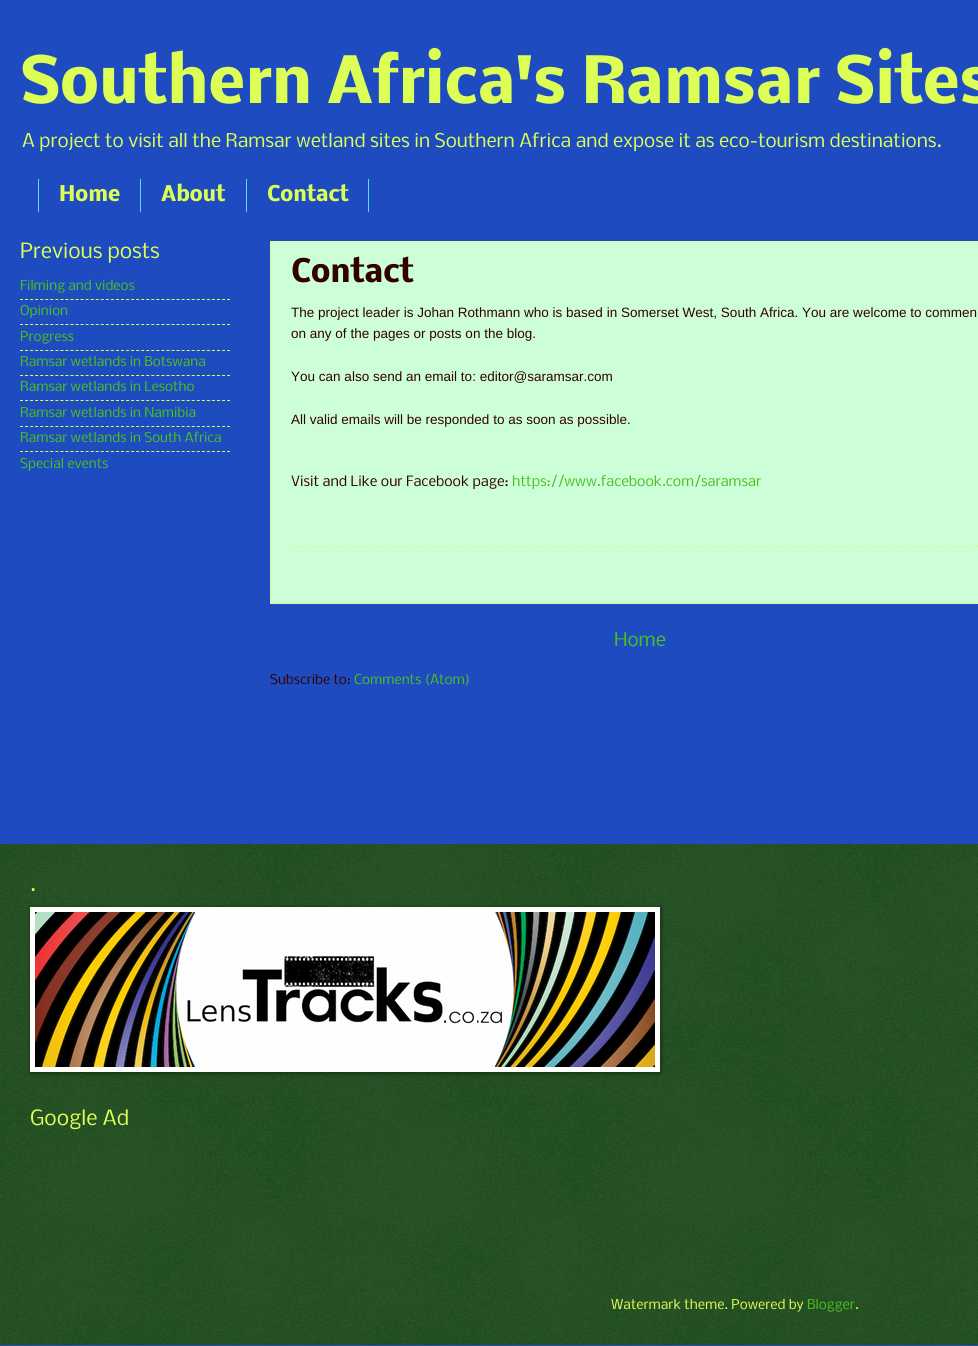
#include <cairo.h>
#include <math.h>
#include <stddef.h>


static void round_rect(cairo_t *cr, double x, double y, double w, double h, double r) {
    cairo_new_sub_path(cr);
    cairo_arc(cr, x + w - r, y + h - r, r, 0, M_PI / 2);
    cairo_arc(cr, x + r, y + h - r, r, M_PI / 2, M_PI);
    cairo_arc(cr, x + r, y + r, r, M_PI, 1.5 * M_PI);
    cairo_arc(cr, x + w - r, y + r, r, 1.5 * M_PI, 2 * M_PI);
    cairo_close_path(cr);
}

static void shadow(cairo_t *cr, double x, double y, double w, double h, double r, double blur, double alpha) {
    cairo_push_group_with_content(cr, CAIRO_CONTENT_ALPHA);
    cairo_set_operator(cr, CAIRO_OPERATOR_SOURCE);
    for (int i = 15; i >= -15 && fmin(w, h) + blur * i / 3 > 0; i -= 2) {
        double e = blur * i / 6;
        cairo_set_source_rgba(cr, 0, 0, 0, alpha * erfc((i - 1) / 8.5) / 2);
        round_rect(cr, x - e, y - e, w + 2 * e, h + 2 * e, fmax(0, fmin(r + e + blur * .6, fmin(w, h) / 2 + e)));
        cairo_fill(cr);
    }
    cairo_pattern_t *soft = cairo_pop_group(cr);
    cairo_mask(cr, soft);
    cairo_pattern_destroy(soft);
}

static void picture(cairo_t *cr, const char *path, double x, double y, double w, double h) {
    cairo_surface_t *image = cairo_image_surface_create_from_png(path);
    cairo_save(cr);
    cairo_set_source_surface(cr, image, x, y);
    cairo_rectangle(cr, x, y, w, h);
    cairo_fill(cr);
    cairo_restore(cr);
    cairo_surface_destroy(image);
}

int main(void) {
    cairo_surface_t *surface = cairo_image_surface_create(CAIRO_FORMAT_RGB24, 978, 1346);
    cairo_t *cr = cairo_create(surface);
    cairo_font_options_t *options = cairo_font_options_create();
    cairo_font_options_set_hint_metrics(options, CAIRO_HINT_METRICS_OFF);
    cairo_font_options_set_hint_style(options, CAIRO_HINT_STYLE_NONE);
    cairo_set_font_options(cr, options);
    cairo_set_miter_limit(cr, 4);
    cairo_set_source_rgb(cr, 0.118, 0.298, 0.753);
    cairo_paint(cr);
    cairo_select_font_face(cr, "Nobile", CAIRO_FONT_SLANT_NORMAL, CAIRO_FONT_WEIGHT_BOLD);
    cairo_set_font_size(cr, 60);
    cairo_set_source_rgb(cr, 0.867, 1, 0.333);
    cairo_move_to(cr, 20, 103);
    cairo_show_text(cr, "Southern Africa's Ramsar Sites");
    cairo_select_font_face(cr, "Nobile", CAIRO_FONT_SLANT_NORMAL, CAIRO_FONT_WEIGHT_NORMAL);
    cairo_set_font_size(cr, 18.03);
    cairo_move_to(cr, 22, 147);
    cairo_show_text(cr, "A project to visit all the Ramsar wetland sites in Southern Africa and expose it as eco-tourism destinations.");
    cairo_set_source_rgb(cr, 0.333, 0.867, 1);
    cairo_rectangle(cr, 140, 179, 1, 33);
    cairo_fill(cr);
    cairo_rectangle(cr, 38, 179, 1, 33);
    cairo_fill(cr);
    cairo_select_font_face(cr, "Nobile", CAIRO_FONT_SLANT_NORMAL, CAIRO_FONT_WEIGHT_BOLD);
    cairo_set_font_size(cr, 20);
    cairo_set_source_rgb(cr, 0.867, 1, 0.333);
    cairo_move_to(cr, 59, 201);
    cairo_show_text(cr, "Home");
    cairo_set_source_rgb(cr, 0.333, 0.867, 1);
    cairo_rectangle(cr, 246, 179, 1, 33);
    cairo_fill(cr);
    cairo_set_source_rgb(cr, 0.867, 1, 0.333);
    cairo_move_to(cr, 161, 201);
    cairo_show_text(cr, "About");
    cairo_set_source_rgb(cr, 0.333, 0.867, 1);
    cairo_rectangle(cr, 368, 179, 1, 33);
    cairo_fill(cr);
    cairo_set_source_rgb(cr, 0.867, 1, 0.333);
    cairo_move_to(cr, 267, 201);
    cairo_show_text(cr, "Contact");
    cairo_select_font_face(cr, "Nobile", CAIRO_FONT_SLANT_NORMAL, CAIRO_FONT_WEIGHT_NORMAL);
    cairo_move_to(cr, 20, 258);
    cairo_show_text(cr, "Previous posts");
    cairo_set_font_size(cr, 12.9);
    cairo_set_source_rgb(cr, 0.294, 0.753, 0.118);
    cairo_move_to(cr, 20, 290);
    cairo_show_text(cr, "Filming and videos");
    cairo_new_path(cr);
    cairo_move_to(cr, 20, 299.5);
    cairo_line_to(cr, 230, 299.5);
    cairo_set_source_rgb(cr, 0.867, 1, 0.333);
    cairo_set_line_width(cr, 1);
    cairo_set_dash(cr, (double[]){3, 2.05}, 2, 0);
    cairo_stroke(cr);
    cairo_set_source_rgb(cr, 0.294, 0.753, 0.118);
    cairo_move_to(cr, 20, 315);
    cairo_show_text(cr, "Opinion");
    cairo_new_path(cr);
    cairo_move_to(cr, 20, 324.5);
    cairo_line_to(cr, 230, 324.5);
    cairo_set_source_rgb(cr, 0.867, 1, 0.333);
    cairo_stroke(cr);
    cairo_set_source_rgb(cr, 0.294, 0.753, 0.118);
    cairo_move_to(cr, 20, 341);
    cairo_show_text(cr, "Progress");
    cairo_new_path(cr);
    cairo_move_to(cr, 20, 350.5);
    cairo_line_to(cr, 230, 350.5);
    cairo_set_source_rgb(cr, 0.867, 1, 0.333);
    cairo_stroke(cr);
    cairo_set_source_rgb(cr, 0.294, 0.753, 0.118);
    cairo_move_to(cr, 20, 366);
    cairo_show_text(cr, "Ramsar wetlands in Botswana");
    cairo_new_path(cr);
    cairo_move_to(cr, 20, 375.5);
    cairo_line_to(cr, 230, 375.5);
    cairo_set_source_rgb(cr, 0.867, 1, 0.333);
    cairo_stroke(cr);
    cairo_set_source_rgb(cr, 0.294, 0.753, 0.118);
    cairo_move_to(cr, 20, 391);
    cairo_show_text(cr, "Ramsar wetlands in Lesotho");
    cairo_new_path(cr);
    cairo_move_to(cr, 20, 400.5);
    cairo_line_to(cr, 230, 400.5);
    cairo_set_source_rgb(cr, 0.867, 1, 0.333);
    cairo_stroke(cr);
    cairo_set_source_rgb(cr, 0.294, 0.753, 0.118);
    cairo_move_to(cr, 20, 417);
    cairo_show_text(cr, "Ramsar wetlands in Namibia");
    cairo_new_path(cr);
    cairo_move_to(cr, 20, 426.5);
    cairo_line_to(cr, 230, 426.5);
    cairo_set_source_rgb(cr, 0.867, 1, 0.333);
    cairo_stroke(cr);
    cairo_set_source_rgb(cr, 0.294, 0.753, 0.118);
    cairo_move_to(cr, 20, 442);
    cairo_show_text(cr, "Ramsar wetlands in South Africa");
    cairo_new_path(cr);
    cairo_move_to(cr, 20, 451.5);
    cairo_line_to(cr, 230, 451.5);
    cairo_set_source_rgb(cr, 0.867, 1, 0.333);
    cairo_stroke(cr);
    cairo_set_source_rgb(cr, 0.294, 0.753, 0.118);
    cairo_move_to(cr, 20, 468);
    cairo_show_text(cr, "Special events");
    cairo_set_source_rgb(cr, 0.8, 1, 0.843);
    cairo_rectangle(cr, 270, 241, 708, 363);
    cairo_fill(cr);
    cairo_new_path(cr);
    cairo_move_to(cr, 270, 241.5);
    cairo_line_to(cr, 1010, 241.5);
    cairo_set_source_rgb(cr, 0.867, 1, 0.333);
    cairo_set_dash(cr, (double[]){1, 1}, 2, 0);
    cairo_stroke(cr);
    cairo_new_path(cr);
    cairo_move_to(cr, 270, 603.5);
    cairo_line_to(cr, 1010, 603.5);
    cairo_stroke(cr);
    cairo_new_path(cr);
    cairo_move_to(cr, 270.5, 241);
    cairo_line_to(cr, 270.5, 604);
    cairo_stroke(cr);
    cairo_select_font_face(cr, "Nobile", CAIRO_FONT_SLANT_NORMAL, CAIRO_FONT_WEIGHT_BOLD);
    cairo_set_font_size(cr, 30);
    cairo_set_source_rgb(cr, 0.2, 0, 0);
    cairo_move_to(cr, 291, 282);
    cairo_show_text(cr, "Contact");
    cairo_select_font_face(cr, "Liberation Sans", CAIRO_FONT_SLANT_NORMAL, CAIRO_FONT_WEIGHT_NORMAL);
    cairo_set_font_size(cr, 13.52);
    cairo_move_to(cr, 291, 317);
    cairo_show_text(cr, "The project leader is Johan Rothmann who is based in Somerset West, South Africa. You are welcome to commen");
    cairo_move_to(cr, 291, 338);
    cairo_show_text(cr, "on any of the pages or posts on the blog.");
    cairo_move_to(cr, 291, 381);
    cairo_show_text(cr, "You can also send an email to: editor@saramsar.com");
    cairo_move_to(cr, 291, 424);
    cairo_show_text(cr, "All valid emails will be responded to as soon as possible.");
    cairo_select_font_face(cr, "Nobile", CAIRO_FONT_SLANT_NORMAL, CAIRO_FONT_WEIGHT_NORMAL);
    cairo_move_to(cr, 291, 486);
    cairo_show_text(cr, "Visit and Like our Facebook page:");
    cairo_set_source_rgb(cr, 0.294, 0.753, 0.118);
    cairo_move_to(cr, 512, 486);
    cairo_show_text(cr, "https://www.facebook.com/saramsar");
    cairo_new_path(cr);
    cairo_move_to(cr, 291, 546.5);
    cairo_line_to(cr, 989, 546.5);
    cairo_set_source_rgb(cr, 0.867, 1, 0.333);
    cairo_set_dash(cr, (double[]){3, 2}, 2, 0);
    cairo_stroke(cr);
    cairo_set_font_size(cr, 18.03);
    cairo_set_source_rgb(cr, 0.294, 0.753, 0.118);
    cairo_move_to(cr, 614, 646);
    cairo_show_text(cr, "Home");
    cairo_set_font_size(cr, 12.9);
    cairo_set_source_rgb(cr, 0.2, 0, 0);
    cairo_move_to(cr, 270, 684);
    cairo_show_text(cr, "Subscribe to:");
    cairo_set_source_rgb(cr, 0.294, 0.753, 0.118);
    cairo_move_to(cr, 354, 684);
    cairo_show_text(cr, "Comments (Atom)");
    cairo_set_source_rgb(cr, 0, 0.2, 0);
    cairo_rectangle(cr, 0, 844, 978, 501);
    cairo_fill(cr);
    picture(cr, "img1.png", 0, 844, 978, 501);
    cairo_set_font_size(cr, 20);
    cairo_set_source_rgb(cr, 0.867, 1, 0.333);
    cairo_move_to(cr, 30, 891);
    cairo_show_text(cr, ".");
    cairo_set_source_rgb(cr, 0, 0, 0);
    shadow(cr, 31, 908, 630, 165, 0, 2.5, 0.5);
    cairo_set_source_rgb(cr, 1, 1, 1);
    cairo_rectangle(cr, 30, 907, 630, 165);
    cairo_fill(cr);
    picture(cr, "img2.png", 35, 912, 620, 155);
    cairo_set_source_rgb(cr, 0.867, 1, 0.333);
    cairo_move_to(cr, 30, 1125);
    cairo_show_text(cr, "Google Ad");
    cairo_set_font_size(cr, 12.9);
    cairo_move_to(cr, 611, 1309);
    cairo_show_text(cr, "Watermark theme. Powered by");
    cairo_set_source_rgb(cr, 0.294, 0.753, 0.118);
    cairo_move_to(cr, 807, 1309);
    cairo_show_text(cr, "Blogger");
    cairo_set_source_rgb(cr, 0.867, 1, 0.333);
    cairo_move_to(cr, 855, 1309);
    cairo_show_text(cr, ".");
    cairo_surface_write_to_png(surface, "page.png");
    cairo_font_options_destroy(options);
    cairo_destroy(cr);
    cairo_surface_destroy(surface);
    return 0;
}
